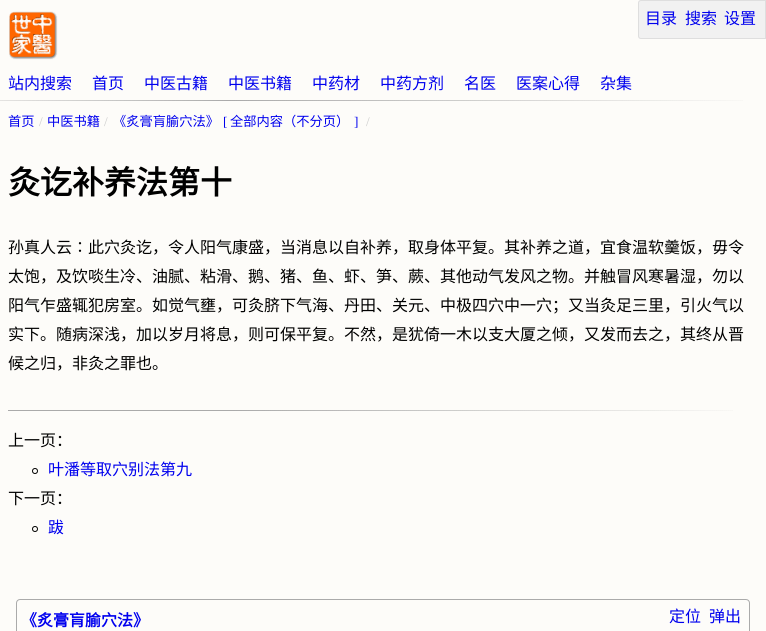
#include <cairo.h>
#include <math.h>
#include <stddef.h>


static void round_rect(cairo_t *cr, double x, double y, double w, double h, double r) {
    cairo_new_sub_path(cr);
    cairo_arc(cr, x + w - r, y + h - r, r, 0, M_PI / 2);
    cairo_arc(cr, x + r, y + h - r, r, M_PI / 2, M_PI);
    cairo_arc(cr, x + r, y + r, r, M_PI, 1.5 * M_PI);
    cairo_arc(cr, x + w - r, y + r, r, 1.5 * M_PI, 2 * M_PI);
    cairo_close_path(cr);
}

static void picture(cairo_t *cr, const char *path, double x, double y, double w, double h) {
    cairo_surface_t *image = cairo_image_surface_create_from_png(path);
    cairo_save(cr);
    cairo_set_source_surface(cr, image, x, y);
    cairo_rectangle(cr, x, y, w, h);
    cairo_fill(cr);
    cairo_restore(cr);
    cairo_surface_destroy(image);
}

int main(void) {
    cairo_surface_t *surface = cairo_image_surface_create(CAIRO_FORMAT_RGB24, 766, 631);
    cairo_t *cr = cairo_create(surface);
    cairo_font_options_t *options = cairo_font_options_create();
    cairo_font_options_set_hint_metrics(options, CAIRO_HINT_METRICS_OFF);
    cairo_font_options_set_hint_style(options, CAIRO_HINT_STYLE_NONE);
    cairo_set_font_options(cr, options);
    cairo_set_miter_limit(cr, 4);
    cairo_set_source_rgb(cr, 0.992, 0.988, 0.973);
    cairo_paint(cr);
    cairo_set_source_rgb(cr, 0.945, 0.945, 0.945);
    cairo_new_path(cr);
    cairo_move_to(cr, 641, 0);
    cairo_line_to(cr, 766, 0);
    cairo_line_to(cr, 766, 39);
    cairo_line_to(cr, 641, 39);
    cairo_curve_to(cr, 639.5, 39, 638, 37.5, 638, 36);
    cairo_line_to(cr, 638, 3);
    cairo_curve_to(cr, 638, 1.5, 639.5, 0, 641, 0);
    cairo_close_path(cr);
    cairo_fill(cr);
    cairo_new_path(cr);
    cairo_move_to(cr, 641, 0.5);
    cairo_line_to(cr, 765.5, 0.5);
    cairo_line_to(cr, 765.5, 38.5);
    cairo_line_to(cr, 641, 38.5);
    cairo_curve_to(cr, 639.5, 38.5, 638.5, 37.5, 638.5, 36);
    cairo_line_to(cr, 638.5, 3);
    cairo_curve_to(cr, 638.5, 1.5, 639.5, 0.5, 641, 0.5);
    cairo_close_path(cr);
    cairo_set_source_rgba(cr, 0.863, 0.863, 0.863, 0.9);
    cairo_set_line_width(cr, 1);
    cairo_stroke(cr);
    cairo_select_font_face(cr, "Noto Sans CJK SC", CAIRO_FONT_SLANT_NORMAL, CAIRO_FONT_WEIGHT_NORMAL);
    cairo_set_font_size(cr, 16);
    cairo_set_source_rgb(cr, 0, 0, 0.933);
    cairo_move_to(cr, 645, 24);
    cairo_show_text(cr, "目录");
    cairo_move_to(cr, 685, 24);
    cairo_show_text(cr, "搜索");
    cairo_move_to(cr, 724, 24);
    cairo_show_text(cr, "设置");
    round_rect(cr, 16.5, 599.5, 733, 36, 3.5);
    cairo_set_source_rgb(cr, 0.667, 0.667, 0.667);
    cairo_stroke(cr);
    cairo_select_font_face(cr, "Noto Sans CJK SC", CAIRO_FONT_SLANT_NORMAL, CAIRO_FONT_WEIGHT_BOLD);
    cairo_set_source_rgb(cr, 0, 0, 0.933);
    cairo_move_to(cr, 21, 626);
    cairo_show_text(cr, "《炙膏肓腧穴法》");
    cairo_select_font_face(cr, "Noto Sans CJK SC", CAIRO_FONT_SLANT_NORMAL, CAIRO_FONT_WEIGHT_NORMAL);
    cairo_move_to(cr, 669, 622);
    cairo_show_text(cr, "定位");
    cairo_move_to(cr, 709, 622);
    cairo_show_text(cr, "弹出");
    picture(cr, "img1.png", 0, 100, 743, 1);
    picture(cr, "img2.png", 9, 11, 49, 49);
    cairo_move_to(cr, 8, 89);
    cairo_show_text(cr, "站内搜索");
    cairo_move_to(cr, 92, 89);
    cairo_show_text(cr, "首页");
    cairo_move_to(cr, 144, 89);
    cairo_show_text(cr, "中医古籍");
    cairo_move_to(cr, 228, 89);
    cairo_show_text(cr, "中医书籍");
    cairo_move_to(cr, 312, 89);
    cairo_show_text(cr, "中药材");
    cairo_move_to(cr, 380, 89);
    cairo_show_text(cr, "中药方剂");
    cairo_move_to(cr, 464, 89);
    cairo_show_text(cr, "名医");
    cairo_move_to(cr, 516, 89);
    cairo_show_text(cr, "医案心得");
    cairo_move_to(cr, 600, 89);
    cairo_show_text(cr, "杂集");
    cairo_set_font_size(cr, 13.25);
    cairo_move_to(cr, 8, 126);
    cairo_show_text(cr, "首页");
    cairo_select_font_face(cr, "Liberation Serif", CAIRO_FONT_SLANT_NORMAL, CAIRO_FONT_WEIGHT_NORMAL);
    cairo_set_source_rgb(cr, 0.8, 0.8, 0.8);
    cairo_move_to(cr, 39, 126);
    cairo_show_text(cr, "/");
    cairo_select_font_face(cr, "Noto Sans CJK SC", CAIRO_FONT_SLANT_NORMAL, CAIRO_FONT_WEIGHT_NORMAL);
    cairo_set_source_rgb(cr, 0, 0, 0.933);
    cairo_move_to(cr, 47, 126);
    cairo_show_text(cr, "中医书籍");
    cairo_select_font_face(cr, "Liberation Serif", CAIRO_FONT_SLANT_NORMAL, CAIRO_FONT_WEIGHT_NORMAL);
    cairo_set_source_rgb(cr, 0.8, 0.8, 0.8);
    cairo_move_to(cr, 104, 126);
    cairo_show_text(cr, "/");
    cairo_select_font_face(cr, "Noto Sans CJK SC", CAIRO_FONT_SLANT_NORMAL, CAIRO_FONT_WEIGHT_NORMAL);
    cairo_set_source_rgb(cr, 0, 0, 0.933);
    cairo_move_to(cr, 113, 126);
    cairo_show_text(cr, "《炙膏肓腧穴法》");
    cairo_select_font_face(cr, "Liberation Serif", CAIRO_FONT_SLANT_NORMAL, CAIRO_FONT_WEIGHT_NORMAL);
    cairo_move_to(cr, 223, 126);
    cairo_show_text(cr, "[");
    cairo_select_font_face(cr, "Noto Sans CJK SC", CAIRO_FONT_SLANT_NORMAL, CAIRO_FONT_WEIGHT_NORMAL);
    cairo_move_to(cr, 230, 126);
    cairo_show_text(cr, "全部内容（不分页）");
    cairo_select_font_face(cr, "Liberation Serif", CAIRO_FONT_SLANT_NORMAL, CAIRO_FONT_WEIGHT_NORMAL);
    cairo_move_to(cr, 354, 126);
    cairo_show_text(cr, "]");
    cairo_set_source_rgb(cr, 0.8, 0.8, 0.8);
    cairo_move_to(cr, 366, 126);
    cairo_show_text(cr, "/");
    cairo_select_font_face(cr, "Noto Sans CJK SC", CAIRO_FONT_SLANT_NORMAL, CAIRO_FONT_WEIGHT_BOLD);
    cairo_set_font_size(cr, 32);
    cairo_set_source_rgb(cr, 0, 0, 0);
    cairo_move_to(cr, 8, 194);
    cairo_show_text(cr, "灸讫补养法第十");
    cairo_select_font_face(cr, "Noto Sans CJK SC", CAIRO_FONT_SLANT_NORMAL, CAIRO_FONT_WEIGHT_NORMAL);
    cairo_set_font_size(cr, 16);
    cairo_move_to(cr, 8, 253);
    cairo_show_text(cr, "孙真人云∶此穴灸讫，令人阳气康盛，当消息以自补养，取身体平复。其补养之道，宜食温软羹饭，毋令");
    cairo_move_to(cr, 8, 282);
    cairo_show_text(cr, "太饱，及饮啖生冷、油腻、粘滑、鹅、猪、鱼、虾、笋、蕨、其他动气发风之物。并触冒风寒暑湿，勿以");
    cairo_move_to(cr, 8, 311);
    cairo_show_text(cr, "阳气乍盛辄犯房室。如觉气壅，可灸脐下气海、丹田、关元、中极四穴中一穴；又当灸足三里，引火气以");
    cairo_move_to(cr, 8, 340);
    cairo_show_text(cr, "实下。随病深浅，加以岁月将息，则可保平复。不然，是犹倚一木以支大厦之倾，又发而去之，其终从晋");
    cairo_move_to(cr, 8, 369);
    cairo_show_text(cr, "候之归，非灸之罪也。");
    picture(cr, "img3.png", 8, 410, 725, 1);
    cairo_move_to(cr, 8, 446);
    cairo_show_text(cr, "上一页：");
    cairo_new_path(cr);
    cairo_arc(cr, 35, 471, 2.5, 0, 2 * M_PI);
    cairo_stroke(cr);
    cairo_set_source_rgb(cr, 0, 0, 0.933);
    cairo_move_to(cr, 48, 475);
    cairo_show_text(cr, "叶潘等取穴别法第九");
    cairo_set_source_rgb(cr, 0, 0, 0);
    cairo_move_to(cr, 8, 504);
    cairo_show_text(cr, "下一页：");
    cairo_new_path(cr);
    cairo_arc(cr, 35, 529, 2.5, 0, 2 * M_PI);
    cairo_stroke(cr);
    cairo_set_source_rgb(cr, 0, 0, 0.933);
    cairo_move_to(cr, 48, 533);
    cairo_show_text(cr, "跋");
    cairo_surface_write_to_png(surface, "page.png");
    cairo_font_options_destroy(options);
    cairo_destroy(cr);
    cairo_surface_destroy(surface);
    return 0;
}
